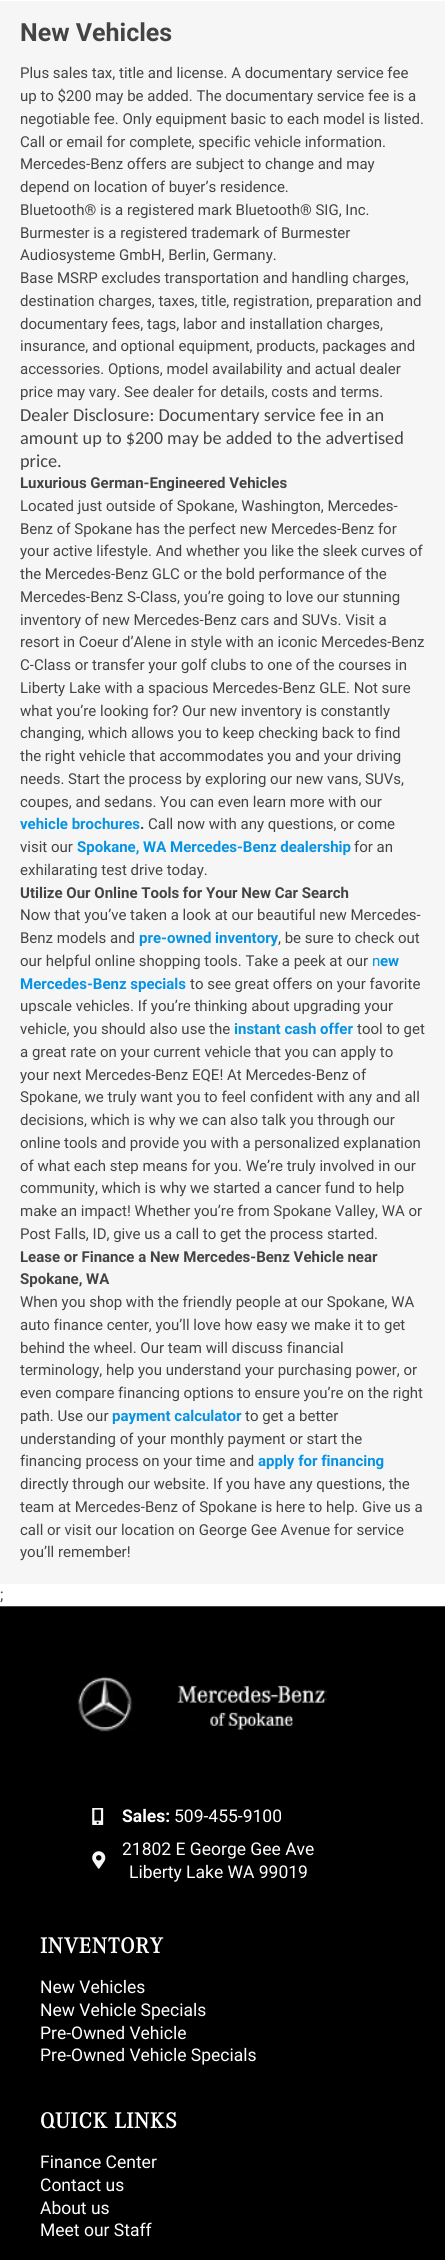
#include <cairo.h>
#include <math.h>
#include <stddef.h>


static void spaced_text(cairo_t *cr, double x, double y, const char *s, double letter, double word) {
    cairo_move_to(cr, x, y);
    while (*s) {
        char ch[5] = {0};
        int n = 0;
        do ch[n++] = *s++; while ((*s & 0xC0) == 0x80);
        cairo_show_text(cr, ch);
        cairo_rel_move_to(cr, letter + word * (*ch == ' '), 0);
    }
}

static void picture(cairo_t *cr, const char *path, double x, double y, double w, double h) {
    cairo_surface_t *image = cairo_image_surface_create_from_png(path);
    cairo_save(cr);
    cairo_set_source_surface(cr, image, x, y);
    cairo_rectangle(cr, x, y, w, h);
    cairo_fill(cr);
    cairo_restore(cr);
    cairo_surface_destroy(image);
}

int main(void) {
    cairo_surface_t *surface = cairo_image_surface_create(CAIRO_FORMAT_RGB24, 445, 2260);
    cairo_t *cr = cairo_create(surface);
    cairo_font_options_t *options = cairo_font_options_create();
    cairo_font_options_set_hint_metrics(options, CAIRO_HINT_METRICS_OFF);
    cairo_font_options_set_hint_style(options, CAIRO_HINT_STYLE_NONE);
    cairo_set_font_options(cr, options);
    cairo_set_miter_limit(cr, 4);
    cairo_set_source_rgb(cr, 1, 1, 1);
    cairo_paint(cr);
    cairo_set_source_rgb(cr, 0.961, 0.961, 0.961);
    cairo_rectangle(cr, 0, 1, 445, 1583);
    cairo_fill(cr);
    cairo_select_font_face(cr, "Roboto", CAIRO_FONT_SLANT_NORMAL, CAIRO_FONT_WEIGHT_BOLD);
    cairo_set_font_size(cr, 25);
    cairo_set_source_rgb(cr, 0.267, 0.267, 0.267);
    cairo_move_to(cr, 20, 41);
    cairo_show_text(cr, "New Vehicles");
    cairo_select_font_face(cr, "Roboto", CAIRO_FONT_SLANT_NORMAL, CAIRO_FONT_WEIGHT_NORMAL);
    cairo_set_font_size(cr, 15);
    cairo_move_to(cr, 20, 78);
    cairo_show_text(cr, "Plus sales tax, title and license. A documentary service fee");
    cairo_move_to(cr, 20, 101);
    cairo_show_text(cr, "up to $200 may be added. The documentary service fee is a");
    cairo_move_to(cr, 20, 124);
    cairo_show_text(cr, "negotiable fee. Only equipment basic to each model is listed.");
    cairo_move_to(cr, 20, 147);
    cairo_show_text(cr, "Call or email for complete, specific vehicle information.");
    cairo_move_to(cr, 20, 169);
    cairo_show_text(cr, "Mercedes-Benz offers are subject to change and may");
    cairo_move_to(cr, 20, 192);
    cairo_show_text(cr, "depend on location of buyer’s residence.");
    cairo_move_to(cr, 20, 215);
    cairo_show_text(cr, "Bluetooth® is a registered mark Bluetooth® SIG, Inc.");
    cairo_move_to(cr, 20, 238);
    cairo_show_text(cr, "Burmester is a registered trademark of Burmester");
    cairo_move_to(cr, 20, 260);
    cairo_show_text(cr, "Audiosysteme GmbH, Berlin, Germany.");
    cairo_move_to(cr, 20, 283);
    cairo_show_text(cr, "Base MSRP excludes transportation and handling charges,");
    cairo_move_to(cr, 20, 306);
    cairo_show_text(cr, "destination charges, taxes, title, registration, preparation and");
    cairo_move_to(cr, 20, 329);
    cairo_show_text(cr, "documentary fees, tags, labor and installation charges,");
    cairo_move_to(cr, 20, 351);
    cairo_show_text(cr, "insurance, and optional equipment, products, packages and");
    cairo_move_to(cr, 20, 374);
    cairo_show_text(cr, "accessories. Options, model availability and actual dealer");
    cairo_move_to(cr, 20, 397);
    cairo_show_text(cr, "price may vary. See dealer for details, costs and terms.");
    cairo_select_font_face(cr, "Carlito", CAIRO_FONT_SLANT_NORMAL, CAIRO_FONT_WEIGHT_NORMAL);
    cairo_set_font_size(cr, 18.3);
    cairo_move_to(cr, 20, 421);
    cairo_show_text(cr, "Dealer Disclosure: Documentary service fee in an");
    cairo_move_to(cr, 20, 444);
    cairo_show_text(cr, "amount up to $200 may be added to the advertised");
    cairo_move_to(cr, 20, 467);
    cairo_show_text(cr, "price.");
    cairo_select_font_face(cr, "Roboto", CAIRO_FONT_SLANT_NORMAL, CAIRO_FONT_WEIGHT_BOLD);
    cairo_set_font_size(cr, 15);
    cairo_move_to(cr, 20, 488);
    cairo_show_text(cr, "Luxurious German-Engineered Vehicles");
    cairo_select_font_face(cr, "Roboto", CAIRO_FONT_SLANT_NORMAL, CAIRO_FONT_WEIGHT_NORMAL);
    cairo_move_to(cr, 20, 511);
    cairo_show_text(cr, "Located just outside of Spokane, Washington, Mercedes-");
    cairo_move_to(cr, 20, 534);
    cairo_show_text(cr, "Benz of Spokane has the perfect new Mercedes-Benz for");
    cairo_move_to(cr, 20, 556);
    cairo_show_text(cr, "your active lifestyle. And whether you like the sleek curves of");
    cairo_move_to(cr, 20, 579);
    cairo_show_text(cr, "the Mercedes-Benz GLC or the bold performance of the");
    cairo_move_to(cr, 20, 602);
    cairo_show_text(cr, "Mercedes-Benz S-Class, you’re going to love our stunning");
    cairo_move_to(cr, 20, 625);
    cairo_show_text(cr, "inventory of new Mercedes-Benz cars and SUVs. Visit a");
    cairo_move_to(cr, 20, 647);
    cairo_show_text(cr, "resort in Coeur d’Alene in style with an iconic Mercedes-Benz");
    cairo_move_to(cr, 20, 670);
    cairo_show_text(cr, "C-Class or transfer your golf clubs to one of the courses in");
    cairo_move_to(cr, 20, 693);
    cairo_show_text(cr, "Liberty Lake with a spacious Mercedes-Benz GLE. Not sure");
    cairo_move_to(cr, 20, 716);
    cairo_show_text(cr, "what you’re looking for? Our new inventory is constantly");
    cairo_move_to(cr, 20, 738);
    cairo_show_text(cr, "changing, which allows you to keep checking back to find");
    cairo_move_to(cr, 20, 761);
    cairo_show_text(cr, "the right vehicle that accommodates you and your driving");
    cairo_move_to(cr, 20, 784);
    cairo_show_text(cr, "needs. Start the process by exploring our new vans, SUVs,");
    cairo_move_to(cr, 20, 807);
    cairo_show_text(cr, "coupes, and sedans. You can even learn more with our");
    cairo_select_font_face(cr, "Roboto", CAIRO_FONT_SLANT_NORMAL, CAIRO_FONT_WEIGHT_BOLD);
    cairo_set_source_rgb(cr, 0.024, 0.576, 0.89);
    cairo_move_to(cr, 20, 829);
    cairo_show_text(cr, "vehicle brochures");
    cairo_set_source_rgb(cr, 0.267, 0.267, 0.267);
    cairo_move_to(cr, 140, 829);
    cairo_show_text(cr, ".");
    cairo_select_font_face(cr, "Roboto", CAIRO_FONT_SLANT_NORMAL, CAIRO_FONT_WEIGHT_NORMAL);
    cairo_move_to(cr, 148, 829);
    cairo_show_text(cr, "Call now with any questions, or come");
    cairo_move_to(cr, 20, 852);
    cairo_show_text(cr, "visit our");
    cairo_select_font_face(cr, "Roboto", CAIRO_FONT_SLANT_NORMAL, CAIRO_FONT_WEIGHT_BOLD);
    cairo_set_source_rgb(cr, 0.024, 0.576, 0.89);
    cairo_move_to(cr, 77, 852);
    cairo_show_text(cr, "Spokane, WA Mercedes-Benz dealership");
    cairo_select_font_face(cr, "Roboto", CAIRO_FONT_SLANT_NORMAL, CAIRO_FONT_WEIGHT_NORMAL);
    cairo_set_source_rgb(cr, 0.267, 0.267, 0.267);
    cairo_move_to(cr, 354, 852);
    cairo_show_text(cr, "for an");
    cairo_move_to(cr, 20, 875);
    cairo_show_text(cr, "exhilarating test drive today.");
    cairo_select_font_face(cr, "Roboto", CAIRO_FONT_SLANT_NORMAL, CAIRO_FONT_WEIGHT_BOLD);
    cairo_move_to(cr, 20, 898);
    cairo_show_text(cr, "Utilize Our Online Tools for Your New Car Search");
    cairo_select_font_face(cr, "Roboto", CAIRO_FONT_SLANT_NORMAL, CAIRO_FONT_WEIGHT_NORMAL);
    cairo_move_to(cr, 20, 920);
    cairo_show_text(cr, "Now that you’ve taken a look at our beautiful new Mercedes-");
    cairo_move_to(cr, 20, 943);
    cairo_show_text(cr, "Benz models and");
    cairo_select_font_face(cr, "Roboto", CAIRO_FONT_SLANT_NORMAL, CAIRO_FONT_WEIGHT_BOLD);
    cairo_set_source_rgb(cr, 0.024, 0.576, 0.89);
    cairo_move_to(cr, 139, 943);
    cairo_show_text(cr, "pre-owned inventory");
    cairo_select_font_face(cr, "Roboto", CAIRO_FONT_SLANT_NORMAL, CAIRO_FONT_WEIGHT_NORMAL);
    cairo_set_source_rgb(cr, 0.267, 0.267, 0.267);
    cairo_move_to(cr, 278, 943);
    cairo_show_text(cr, ", be sure to check out");
    cairo_move_to(cr, 20, 966);
    cairo_show_text(cr, "our helpful online shopping tools. Take a peek at our");
    cairo_set_source_rgb(cr, 0.024, 0.576, 0.89);
    cairo_move_to(cr, 372, 966);
    cairo_show_text(cr, "n");
    cairo_select_font_face(cr, "Roboto", CAIRO_FONT_SLANT_NORMAL, CAIRO_FONT_WEIGHT_BOLD);
    cairo_move_to(cr, 380, 966);
    cairo_show_text(cr, "ew");
    cairo_move_to(cr, 20, 989);
    cairo_show_text(cr, "Mercedes-Benz specials");
    cairo_select_font_face(cr, "Roboto", CAIRO_FONT_SLANT_NORMAL, CAIRO_FONT_WEIGHT_NORMAL);
    cairo_set_source_rgb(cr, 0.267, 0.267, 0.267);
    cairo_move_to(cr, 190, 989);
    cairo_show_text(cr, "to see great offers on your favorite");
    cairo_move_to(cr, 20, 1011);
    cairo_show_text(cr, "upscale vehicles. If you’re thinking about upgrading your");
    cairo_move_to(cr, 20, 1034);
    cairo_show_text(cr, "vehicle, you should also use the");
    cairo_select_font_face(cr, "Roboto", CAIRO_FONT_SLANT_NORMAL, CAIRO_FONT_WEIGHT_BOLD);
    cairo_set_source_rgb(cr, 0.024, 0.576, 0.89);
    cairo_move_to(cr, 234, 1034);
    cairo_show_text(cr, "instant cash offer");
    cairo_select_font_face(cr, "Roboto", CAIRO_FONT_SLANT_NORMAL, CAIRO_FONT_WEIGHT_NORMAL);
    cairo_set_source_rgb(cr, 0.267, 0.267, 0.267);
    cairo_move_to(cr, 357, 1034);
    cairo_show_text(cr, "tool to get");
    cairo_move_to(cr, 20, 1057);
    cairo_show_text(cr, "a great rate on your current vehicle that you can apply to");
    cairo_move_to(cr, 20, 1080);
    cairo_show_text(cr, "your next Mercedes-Benz EQE! At Mercedes-Benz of");
    cairo_move_to(cr, 20, 1102);
    cairo_show_text(cr, "Spokane, we truly want you to feel confident with any and all");
    cairo_move_to(cr, 20, 1125);
    cairo_show_text(cr, "decisions, which is why we can also talk you through our");
    cairo_move_to(cr, 20, 1148);
    cairo_show_text(cr, "online tools and provide you with a personalized explanation");
    cairo_move_to(cr, 20, 1171);
    cairo_show_text(cr, "of what each step means for you. We’re truly involved in our");
    cairo_move_to(cr, 20, 1193);
    cairo_show_text(cr, "community, which is why we started a cancer fund to help");
    cairo_move_to(cr, 20, 1216);
    cairo_show_text(cr, "make an impact! Whether you’re from Spokane Valley, WA or");
    cairo_move_to(cr, 20, 1239);
    cairo_show_text(cr, "Post Falls, ID, give us a call to get the process started.");
    cairo_select_font_face(cr, "Roboto", CAIRO_FONT_SLANT_NORMAL, CAIRO_FONT_WEIGHT_BOLD);
    cairo_move_to(cr, 20, 1262);
    cairo_show_text(cr, "Lease or Finance a New Mercedes-Benz Vehicle near");
    cairo_move_to(cr, 20, 1284);
    cairo_show_text(cr, "Spokane, WA");
    cairo_select_font_face(cr, "Roboto", CAIRO_FONT_SLANT_NORMAL, CAIRO_FONT_WEIGHT_NORMAL);
    cairo_move_to(cr, 20, 1307);
    cairo_show_text(cr, "When you shop with the friendly people at our Spokane, WA");
    cairo_move_to(cr, 20, 1330);
    cairo_show_text(cr, "auto finance center, you’ll love how easy we make it to get");
    cairo_move_to(cr, 20, 1353);
    cairo_show_text(cr, "behind the wheel. Our team will discuss financial");
    cairo_move_to(cr, 20, 1375);
    cairo_show_text(cr, "terminology, help you understand your purchasing power, or");
    cairo_move_to(cr, 20, 1398);
    cairo_show_text(cr, "even compare financing options to ensure you’re on the right");
    cairo_move_to(cr, 20, 1421);
    cairo_show_text(cr, "path. Use our");
    cairo_select_font_face(cr, "Roboto", CAIRO_FONT_SLANT_NORMAL, CAIRO_FONT_WEIGHT_BOLD);
    cairo_set_source_rgb(cr, 0.024, 0.576, 0.89);
    cairo_move_to(cr, 112, 1421);
    cairo_show_text(cr, "payment calculator");
    cairo_select_font_face(cr, "Roboto", CAIRO_FONT_SLANT_NORMAL, CAIRO_FONT_WEIGHT_NORMAL);
    cairo_set_source_rgb(cr, 0.267, 0.267, 0.267);
    cairo_move_to(cr, 245, 1421);
    cairo_show_text(cr, "to get a better");
    cairo_move_to(cr, 20, 1444);
    cairo_show_text(cr, "understanding of your monthly payment or start the");
    cairo_move_to(cr, 20, 1466);
    cairo_show_text(cr, "financing process on your time and");
    cairo_select_font_face(cr, "Roboto", CAIRO_FONT_SLANT_NORMAL, CAIRO_FONT_WEIGHT_BOLD);
    cairo_set_source_rgb(cr, 0.024, 0.576, 0.89);
    cairo_move_to(cr, 258, 1466);
    cairo_show_text(cr, "apply for financing");
    cairo_select_font_face(cr, "Roboto", CAIRO_FONT_SLANT_NORMAL, CAIRO_FONT_WEIGHT_NORMAL);
    cairo_set_source_rgb(cr, 0.267, 0.267, 0.267);
    cairo_move_to(cr, 20, 1489);
    cairo_show_text(cr, "directly through our website. If you have any questions, the");
    cairo_move_to(cr, 20, 1512);
    cairo_show_text(cr, "team at Mercedes-Benz of Spokane is here to help. Give us a");
    cairo_move_to(cr, 20, 1535);
    cairo_show_text(cr, "call or visit our location on George Gee Avenue for service");
    cairo_move_to(cr, 20, 1557);
    cairo_show_text(cr, "you’ll remember!");
    cairo_set_font_size(cr, 16);
    cairo_move_to(cr, 0, 1600);
    cairo_show_text(cr, ";");
    cairo_set_source_rgb(cr, 0, 0, 0);
    cairo_rectangle(cr, 0, 1607, 445, 653);
    cairo_fill(cr);
    cairo_set_source_rgb(cr, 0.267, 0.267, 0.267);
    cairo_rectangle(cr, 0, 1606, 445, 1);
    cairo_fill(cr);
    picture(cr, "img1.png", 76, 1677, 251, 55);
    picture(cr, "img2.png", 92, 1808, 12, 17);
    cairo_select_font_face(cr, "Roboto", CAIRO_FONT_SLANT_NORMAL, CAIRO_FONT_WEIGHT_BOLD);
    cairo_set_font_size(cr, 17.5);
    cairo_set_source_rgb(cr, 1, 1, 1);
    cairo_move_to(cr, 122, 1822);
    cairo_show_text(cr, "Sales:");
    cairo_select_font_face(cr, "Roboto", CAIRO_FONT_SLANT_NORMAL, CAIRO_FONT_WEIGHT_NORMAL);
    cairo_move_to(cr, 174, 1822);
    cairo_show_text(cr, "509-455-9100");
    picture(cr, "img3.png", 92, 1851, 14, 18);
    cairo_move_to(cr, 122, 1855);
    cairo_show_text(cr, "21802 E George Gee Ave");
    cairo_move_to(cr, 129, 1878);
    cairo_show_text(cr, "Liberty Lake WA 99019");
    cairo_select_font_face(cr, "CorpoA", CAIRO_FONT_SLANT_NORMAL, CAIRO_FONT_WEIGHT_BOLD);
    cairo_set_font_size(cr, 22.5);
    spaced_text(cr, 40, 1953, "INVENTORY", 0.75, 0);
    cairo_select_font_face(cr, "Roboto", CAIRO_FONT_SLANT_NORMAL, CAIRO_FONT_WEIGHT_NORMAL);
    cairo_set_font_size(cr, 17.5);
    cairo_move_to(cr, 40, 1993);
    cairo_show_text(cr, "New Vehicles");
    cairo_move_to(cr, 40, 2016);
    cairo_show_text(cr, "New Vehicle Specials");
    cairo_move_to(cr, 40, 2039);
    cairo_show_text(cr, "Pre-Owned Vehicle");
    cairo_move_to(cr, 40, 2061);
    cairo_show_text(cr, "Pre-Owned Vehicle Specials");
    cairo_select_font_face(cr, "CorpoA", CAIRO_FONT_SLANT_NORMAL, CAIRO_FONT_WEIGHT_BOLD);
    cairo_set_font_size(cr, 22.5);
    spaced_text(cr, 40, 2128, "QUICK LINKS", 0.75, 0);
    cairo_select_font_face(cr, "Roboto", CAIRO_FONT_SLANT_NORMAL, CAIRO_FONT_WEIGHT_NORMAL);
    cairo_set_font_size(cr, 17.5);
    cairo_move_to(cr, 40, 2168);
    cairo_show_text(cr, "Finance Center");
    cairo_move_to(cr, 40, 2191);
    cairo_show_text(cr, "Contact us");
    cairo_move_to(cr, 40, 2214);
    cairo_show_text(cr, "About us");
    cairo_move_to(cr, 40, 2236);
    cairo_show_text(cr, "Meet our Staff");
    cairo_surface_write_to_png(surface, "page.png");
    cairo_font_options_destroy(options);
    cairo_destroy(cr);
    cairo_surface_destroy(surface);
    return 0;
}
